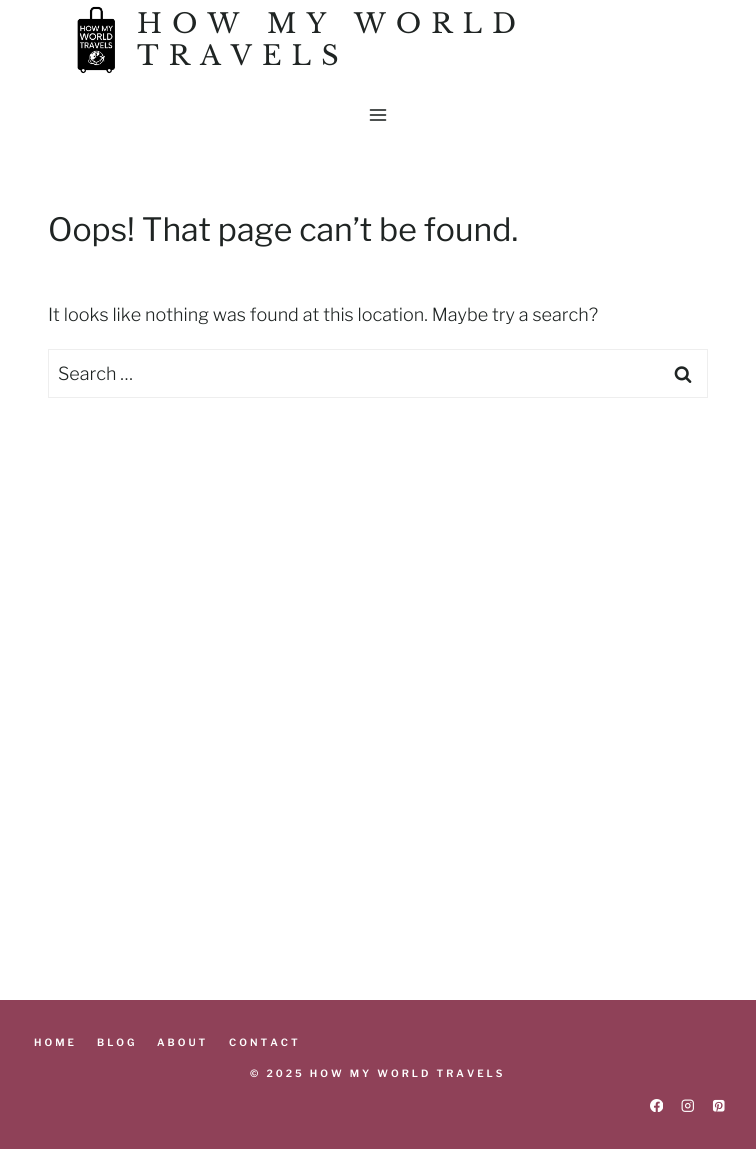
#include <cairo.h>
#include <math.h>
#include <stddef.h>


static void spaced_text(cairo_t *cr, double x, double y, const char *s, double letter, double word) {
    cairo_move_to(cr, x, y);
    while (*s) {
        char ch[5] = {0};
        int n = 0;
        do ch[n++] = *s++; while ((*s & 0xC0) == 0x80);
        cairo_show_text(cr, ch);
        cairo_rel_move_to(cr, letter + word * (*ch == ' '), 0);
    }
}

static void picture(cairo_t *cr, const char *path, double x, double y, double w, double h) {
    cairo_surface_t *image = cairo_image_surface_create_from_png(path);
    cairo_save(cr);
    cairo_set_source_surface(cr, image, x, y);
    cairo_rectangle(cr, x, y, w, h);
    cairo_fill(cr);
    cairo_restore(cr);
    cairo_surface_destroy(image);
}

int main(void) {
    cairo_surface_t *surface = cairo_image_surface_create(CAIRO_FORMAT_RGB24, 756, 1149);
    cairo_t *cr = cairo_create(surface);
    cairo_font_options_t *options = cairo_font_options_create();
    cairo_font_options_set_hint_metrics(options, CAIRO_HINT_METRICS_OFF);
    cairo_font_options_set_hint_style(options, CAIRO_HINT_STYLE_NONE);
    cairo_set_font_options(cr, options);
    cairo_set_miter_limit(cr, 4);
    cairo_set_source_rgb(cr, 1, 1, 1);
    cairo_paint(cr);
    picture(cr, "img1.png", 77, 6, 38, 68);
    cairo_select_font_face(cr, "Libre Baskerville", CAIRO_FONT_SLANT_NORMAL, CAIRO_FONT_WEIGHT_NORMAL);
    cairo_set_font_size(cr, 27);
    cairo_set_source_rgb(cr, 0.122, 0.141, 0.137);
    spaced_text(cr, 137, 33, "HOW MY WORLD", 10, 0);
    spaced_text(cr, 137, 65, "TRAVELS", 10, 0);
    picture(cr, "img2.png", 369, 109, 18, 12);
    cairo_select_font_face(cr, "Libre Franklin", CAIRO_FONT_SLANT_NORMAL, CAIRO_FONT_WEIGHT_NORMAL);
    cairo_set_font_size(cr, 32);
    cairo_move_to(cr, 48, 241);
    cairo_show_text(cr, "Oops! That page can’t be found.");
    cairo_select_font_face(cr, "Libre Franklin Light", CAIRO_FONT_SLANT_NORMAL, CAIRO_FONT_WEIGHT_NORMAL);
    cairo_set_font_size(cr, 18);
    cairo_move_to(cr, 48, 321);
    cairo_show_text(cr, "It looks like nothing was found at this location. Maybe try a search?");
    cairo_rectangle(cr, 48.5, 349.5, 659, 48);
    cairo_set_source_rgb(cr, 0.933, 0.933, 0.933);
    cairo_set_line_width(cr, 1);
    cairo_stroke(cr);
    cairo_set_source_rgb(cr, 0.122, 0.141, 0.137);
    cairo_move_to(cr, 58, 380);
    cairo_show_text(cr, "Search …");
    picture(cr, "img3.png", 674, 366, 18, 17);
    cairo_set_source_rgb(cr, 0.561, 0.255, 0.345);
    cairo_rectangle(cr, 0, 1000, 756, 149);
    cairo_fill(cr);
    cairo_select_font_face(cr, "Libre Franklin SemiBold", CAIRO_FONT_SLANT_NORMAL, CAIRO_FONT_WEIGHT_NORMAL);
    cairo_set_font_size(cr, 10);
    cairo_set_source_rgb(cr, 1, 1, 1);
    spaced_text(cr, 34, 1046, "HOME", 3, 0);
    spaced_text(cr, 97, 1046, "BLOG", 3, 0);
    spaced_text(cr, 157, 1046, "ABOUT", 3, 0);
    spaced_text(cr, 229, 1046, "CONTACT", 3, 0);
    spaced_text(cr, 250, 1077, "© 2025 HOW MY WORLD TRAVELS", 3, 0);
    picture(cr, "img4.png", 650, 1099, 13, 13);
    picture(cr, "img5.png", 681, 1099, 13, 13);
    picture(cr, "img6.png", 712, 1099, 13, 13);
    cairo_surface_write_to_png(surface, "page.png");
    cairo_font_options_destroy(options);
    cairo_destroy(cr);
    cairo_surface_destroy(surface);
    return 0;
}
